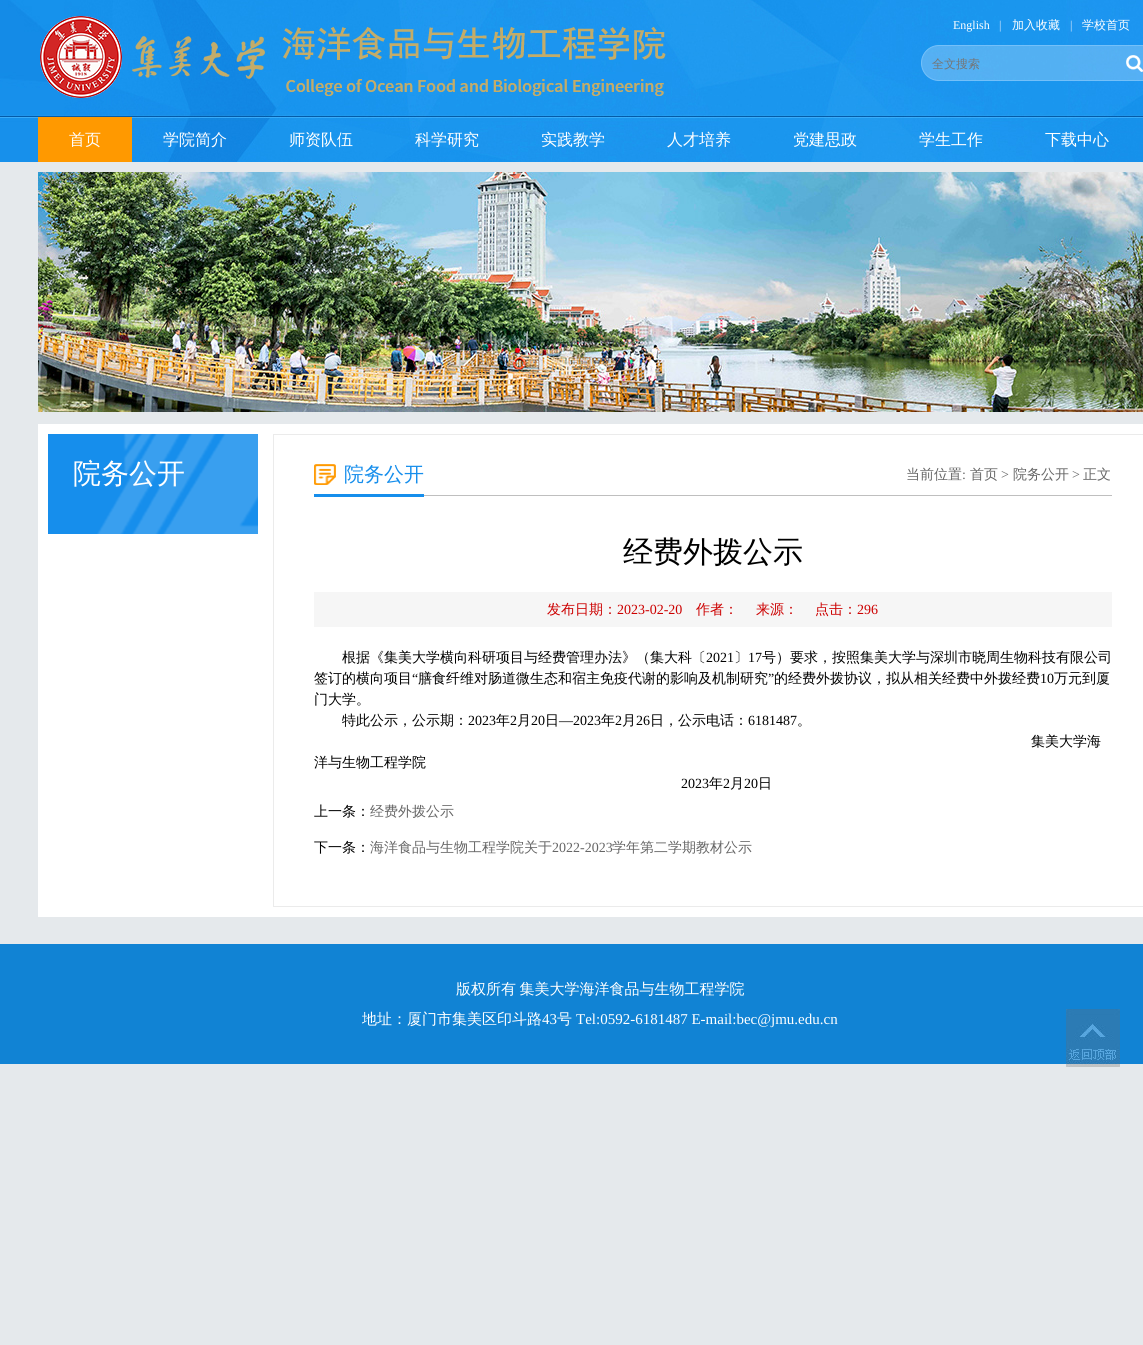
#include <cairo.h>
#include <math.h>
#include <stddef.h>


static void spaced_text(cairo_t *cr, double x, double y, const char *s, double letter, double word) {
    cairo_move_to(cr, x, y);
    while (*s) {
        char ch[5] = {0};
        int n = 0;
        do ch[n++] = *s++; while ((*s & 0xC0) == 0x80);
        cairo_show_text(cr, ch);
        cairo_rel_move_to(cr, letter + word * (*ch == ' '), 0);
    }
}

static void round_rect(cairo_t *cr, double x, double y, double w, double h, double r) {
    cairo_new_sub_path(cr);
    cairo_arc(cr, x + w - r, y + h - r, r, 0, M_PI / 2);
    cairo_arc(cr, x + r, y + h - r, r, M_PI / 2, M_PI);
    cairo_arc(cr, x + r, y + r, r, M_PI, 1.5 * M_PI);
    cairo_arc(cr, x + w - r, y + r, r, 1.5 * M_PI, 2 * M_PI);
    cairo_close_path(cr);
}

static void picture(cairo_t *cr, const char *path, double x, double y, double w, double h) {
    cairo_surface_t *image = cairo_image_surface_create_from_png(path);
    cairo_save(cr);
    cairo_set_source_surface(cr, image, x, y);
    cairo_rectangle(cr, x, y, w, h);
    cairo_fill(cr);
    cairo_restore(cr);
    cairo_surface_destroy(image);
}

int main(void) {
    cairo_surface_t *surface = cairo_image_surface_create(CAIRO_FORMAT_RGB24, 1143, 1345);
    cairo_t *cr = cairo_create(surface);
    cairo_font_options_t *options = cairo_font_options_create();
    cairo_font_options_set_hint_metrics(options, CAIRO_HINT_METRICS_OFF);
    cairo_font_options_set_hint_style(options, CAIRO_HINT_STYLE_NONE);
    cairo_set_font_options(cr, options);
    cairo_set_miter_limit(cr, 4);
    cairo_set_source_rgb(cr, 0.898, 0.914, 0.925);
    cairo_paint(cr);
    picture(cr, "img1.png", 0, 0, 1143, 162);
    picture(cr, "img2.png", 40, 16, 626, 82);
    cairo_select_font_face(cr, "Liberation Serif", CAIRO_FONT_SLANT_NORMAL, CAIRO_FONT_WEIGHT_NORMAL);
    cairo_set_font_size(cr, 12);
    cairo_set_source_rgb(cr, 1, 1, 1);
    cairo_move_to(cr, 953, 29);
    cairo_show_text(cr, "English");
    cairo_set_source_rgb(cr, 0.827, 0.902, 0.984);
    cairo_move_to(cr, 999, 29);
    cairo_show_text(cr, "|");
    cairo_select_font_face(cr, "WenQuanYi Zen Hei Medium", CAIRO_FONT_SLANT_NORMAL, CAIRO_FONT_WEIGHT_NORMAL);
    cairo_set_source_rgb(cr, 1, 1, 1);
    cairo_move_to(cr, 1012, 29);
    cairo_show_text(cr, "加入收藏");
    cairo_select_font_face(cr, "Liberation Serif", CAIRO_FONT_SLANT_NORMAL, CAIRO_FONT_WEIGHT_NORMAL);
    cairo_set_source_rgb(cr, 0.827, 0.902, 0.984);
    cairo_move_to(cr, 1070, 29);
    cairo_show_text(cr, "|");
    cairo_select_font_face(cr, "WenQuanYi Zen Hei Medium", CAIRO_FONT_SLANT_NORMAL, CAIRO_FONT_WEIGHT_NORMAL);
    cairo_set_source_rgb(cr, 1, 1, 1);
    cairo_move_to(cr, 1082, 29);
    cairo_show_text(cr, "学校首页");
    cairo_set_source_rgba(cr, 1, 1, 1, 0.25);
    round_rect(cr, 921.5, 45.5, 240, 35, 17.5);
    cairo_fill_preserve(cr);
    cairo_set_source_rgb(cr, 0.455, 0.753, 0.973);
    cairo_set_line_width(cr, 1);
    cairo_stroke(cr);
    cairo_set_source_rgb(cr, 0.459, 0.459, 0.459);
    cairo_move_to(cr, 932, 68);
    cairo_show_text(cr, "全文搜索");
    picture(cr, "img3.png", 1126, 55, 17, 17);
    cairo_set_source_rgb(cr, 1, 0.6, 0);
    cairo_rectangle(cr, 38, 117, 94, 45);
    cairo_fill(cr);
    cairo_set_font_size(cr, 16);
    cairo_set_source_rgb(cr, 1, 1, 1);
    cairo_move_to(cr, 69, 145);
    cairo_show_text(cr, "首页");
    cairo_move_to(cr, 163, 145);
    cairo_show_text(cr, "学院简介");
    cairo_move_to(cr, 289, 145);
    cairo_show_text(cr, "师资队伍");
    cairo_move_to(cr, 415, 145);
    cairo_show_text(cr, "科学研究");
    cairo_move_to(cr, 541, 145);
    cairo_show_text(cr, "实践教学");
    cairo_move_to(cr, 667, 145);
    cairo_show_text(cr, "人才培养");
    cairo_move_to(cr, 793, 145);
    cairo_show_text(cr, "党建思政");
    cairo_move_to(cr, 919, 145);
    cairo_show_text(cr, "学生工作");
    cairo_move_to(cr, 1045, 145);
    cairo_show_text(cr, "下载中心");
    picture(cr, "img4.png", 38, 172, 1105, 240);
    cairo_rectangle(cr, 38, 424, 1105, 493);
    cairo_fill(cr);
    cairo_set_source_rgb(cr, 0.086, 0.557, 0.922);
    cairo_rectangle(cr, 48, 434, 210, 100);
    cairo_fill(cr);
    picture(cr, "img5.png", 97, 434, 161, 100);
    cairo_set_font_size(cr, 28);
    cairo_set_source_rgb(cr, 1, 1, 1);
    cairo_move_to(cr, 73, 483);
    cairo_show_text(cr, "院务公开");
    cairo_rectangle(cr, 273.5, 434.5, 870, 472);
    cairo_set_source_rgb(cr, 0.918, 0.918, 0.918);
    cairo_stroke(cr);
    cairo_set_source_rgb(cr, 0.749, 0.749, 0.749);
    cairo_rectangle(cr, 424, 495, 688, 1);
    cairo_fill(cr);
    picture(cr, "img6.png", 314, 464, 22, 21);
    cairo_set_source_rgb(cr, 0.086, 0.557, 0.922);
    cairo_rectangle(cr, 314, 494, 110, 3);
    cairo_fill(cr);
    cairo_set_font_size(cr, 20);
    cairo_move_to(cr, 344, 481);
    cairo_show_text(cr, "院务公开");
    cairo_set_font_size(cr, 14);
    cairo_set_source_rgb(cr, 0.4, 0.4, 0.4);
    cairo_move_to(cr, 906, 479);
    cairo_show_text(cr, "当前位置");
    cairo_select_font_face(cr, "Liberation Serif", CAIRO_FONT_SLANT_NORMAL, CAIRO_FONT_WEIGHT_NORMAL);
    cairo_move_to(cr, 962, 479);
    cairo_show_text(cr, ":");
    cairo_select_font_face(cr, "WenQuanYi Zen Hei Medium", CAIRO_FONT_SLANT_NORMAL, CAIRO_FONT_WEIGHT_NORMAL);
    cairo_move_to(cr, 970, 479);
    cairo_show_text(cr, "首页");
    cairo_select_font_face(cr, "Liberation Serif", CAIRO_FONT_SLANT_NORMAL, CAIRO_FONT_WEIGHT_NORMAL);
    cairo_move_to(cr, 1001, 479);
    cairo_show_text(cr, ">");
    cairo_select_font_face(cr, "WenQuanYi Zen Hei Medium", CAIRO_FONT_SLANT_NORMAL, CAIRO_FONT_WEIGHT_NORMAL);
    cairo_move_to(cr, 1013, 479);
    cairo_show_text(cr, "院务公开");
    cairo_select_font_face(cr, "Liberation Serif", CAIRO_FONT_SLANT_NORMAL, CAIRO_FONT_WEIGHT_NORMAL);
    cairo_move_to(cr, 1072, 479);
    cairo_show_text(cr, ">");
    cairo_select_font_face(cr, "WenQuanYi Zen Hei Medium", CAIRO_FONT_SLANT_NORMAL, CAIRO_FONT_WEIGHT_NORMAL);
    cairo_move_to(cr, 1083, 479);
    cairo_show_text(cr, "正文");
    cairo_set_font_size(cr, 30);
    cairo_set_source_rgb(cr, 0, 0, 0);
    cairo_move_to(cr, 623, 562);
    cairo_show_text(cr, "经费外拨公示");
    cairo_set_source_rgb(cr, 0.961, 0.961, 0.961);
    cairo_rectangle(cr, 314, 592, 798, 35);
    cairo_fill(cr);
    cairo_set_font_size(cr, 14);
    cairo_set_source_rgb(cr, 0.8, 0, 0);
    cairo_move_to(cr, 547, 614);
    cairo_show_text(cr, "发布日期：");
    cairo_select_font_face(cr, "Liberation Serif", CAIRO_FONT_SLANT_NORMAL, CAIRO_FONT_WEIGHT_NORMAL);
    cairo_move_to(cr, 617, 614);
    cairo_show_text(cr, "2023-02-20");
    cairo_select_font_face(cr, "WenQuanYi Zen Hei Medium", CAIRO_FONT_SLANT_NORMAL, CAIRO_FONT_WEIGHT_NORMAL);
    cairo_move_to(cr, 696, 614);
    cairo_show_text(cr, "作者：");
    cairo_move_to(cr, 756, 614);
    cairo_show_text(cr, "来源：");
    cairo_move_to(cr, 815, 614);
    cairo_show_text(cr, "点击：");
    cairo_select_font_face(cr, "Liberation Serif", CAIRO_FONT_SLANT_NORMAL, CAIRO_FONT_WEIGHT_NORMAL);
    cairo_move_to(cr, 857, 614);
    cairo_show_text(cr, "296");
    cairo_select_font_face(cr, "WenQuanYi Zen Hei Medium", CAIRO_FONT_SLANT_NORMAL, CAIRO_FONT_WEIGHT_NORMAL);
    cairo_set_source_rgb(cr, 0, 0, 0);
    cairo_move_to(cr, 342, 662);
    cairo_show_text(cr, "根据《集美大学横向科研项目与经费管理办法》（集大科〔");
    cairo_select_font_face(cr, "Liberation Serif", CAIRO_FONT_SLANT_NORMAL, CAIRO_FONT_WEIGHT_NORMAL);
    cairo_move_to(cr, 706, 662);
    cairo_show_text(cr, "2021");
    cairo_select_font_face(cr, "WenQuanYi Zen Hei Medium", CAIRO_FONT_SLANT_NORMAL, CAIRO_FONT_WEIGHT_NORMAL);
    cairo_move_to(cr, 734, 662);
    cairo_show_text(cr, "〕");
    cairo_select_font_face(cr, "Liberation Serif", CAIRO_FONT_SLANT_NORMAL, CAIRO_FONT_WEIGHT_NORMAL);
    cairo_move_to(cr, 748, 662);
    cairo_show_text(cr, "17");
    cairo_select_font_face(cr, "WenQuanYi Zen Hei Medium", CAIRO_FONT_SLANT_NORMAL, CAIRO_FONT_WEIGHT_NORMAL);
    cairo_move_to(cr, 762, 662);
    cairo_show_text(cr, "号）要求，按照集美大学与深圳市晓周生物科技有限公司");
    cairo_move_to(cr, 314, 683);
    cairo_show_text(cr, "签订的横向项目");
    cairo_select_font_face(cr, "Liberation Serif", CAIRO_FONT_SLANT_NORMAL, CAIRO_FONT_WEIGHT_NORMAL);
    cairo_move_to(cr, 412, 683);
    cairo_show_text(cr, "“");
    cairo_select_font_face(cr, "WenQuanYi Zen Hei Medium", CAIRO_FONT_SLANT_NORMAL, CAIRO_FONT_WEIGHT_NORMAL);
    cairo_move_to(cr, 418, 683);
    cairo_show_text(cr, "膳食纤维对肠道微生态和宿主免疫代谢的影响及机制研究");
    cairo_select_font_face(cr, "Liberation Serif", CAIRO_FONT_SLANT_NORMAL, CAIRO_FONT_WEIGHT_NORMAL);
    cairo_move_to(cr, 768, 683);
    cairo_show_text(cr, "”");
    cairo_select_font_face(cr, "WenQuanYi Zen Hei Medium", CAIRO_FONT_SLANT_NORMAL, CAIRO_FONT_WEIGHT_NORMAL);
    cairo_move_to(cr, 774, 683);
    cairo_show_text(cr, "的经费外拨协议，拟从相关经费中外拨经费");
    cairo_select_font_face(cr, "Liberation Serif", CAIRO_FONT_SLANT_NORMAL, CAIRO_FONT_WEIGHT_NORMAL);
    cairo_move_to(cr, 1040, 683);
    cairo_show_text(cr, "10");
    cairo_select_font_face(cr, "WenQuanYi Zen Hei Medium", CAIRO_FONT_SLANT_NORMAL, CAIRO_FONT_WEIGHT_NORMAL);
    cairo_move_to(cr, 1054, 683);
    cairo_show_text(cr, "万元到厦");
    cairo_move_to(cr, 314, 704);
    cairo_show_text(cr, "门大学。");
    cairo_move_to(cr, 342, 725);
    cairo_show_text(cr, "特此公示，公示期：");
    cairo_select_font_face(cr, "Liberation Serif", CAIRO_FONT_SLANT_NORMAL, CAIRO_FONT_WEIGHT_NORMAL);
    cairo_move_to(cr, 468, 725);
    cairo_show_text(cr, "2023");
    cairo_select_font_face(cr, "WenQuanYi Zen Hei Medium", CAIRO_FONT_SLANT_NORMAL, CAIRO_FONT_WEIGHT_NORMAL);
    cairo_move_to(cr, 496, 725);
    cairo_show_text(cr, "年");
    cairo_select_font_face(cr, "Liberation Serif", CAIRO_FONT_SLANT_NORMAL, CAIRO_FONT_WEIGHT_NORMAL);
    cairo_move_to(cr, 510, 725);
    cairo_show_text(cr, "2");
    cairo_select_font_face(cr, "WenQuanYi Zen Hei Medium", CAIRO_FONT_SLANT_NORMAL, CAIRO_FONT_WEIGHT_NORMAL);
    cairo_move_to(cr, 517, 725);
    cairo_show_text(cr, "月");
    cairo_select_font_face(cr, "Liberation Serif", CAIRO_FONT_SLANT_NORMAL, CAIRO_FONT_WEIGHT_NORMAL);
    cairo_move_to(cr, 531, 725);
    cairo_show_text(cr, "20");
    cairo_select_font_face(cr, "WenQuanYi Zen Hei Medium", CAIRO_FONT_SLANT_NORMAL, CAIRO_FONT_WEIGHT_NORMAL);
    cairo_move_to(cr, 545, 725);
    cairo_show_text(cr, "日");
    cairo_select_font_face(cr, "Liberation Serif", CAIRO_FONT_SLANT_NORMAL, CAIRO_FONT_WEIGHT_NORMAL);
    cairo_move_to(cr, 559, 725);
    cairo_show_text(cr, "—2023");
    cairo_select_font_face(cr, "WenQuanYi Zen Hei Medium", CAIRO_FONT_SLANT_NORMAL, CAIRO_FONT_WEIGHT_NORMAL);
    cairo_move_to(cr, 601, 725);
    cairo_show_text(cr, "年");
    cairo_select_font_face(cr, "Liberation Serif", CAIRO_FONT_SLANT_NORMAL, CAIRO_FONT_WEIGHT_NORMAL);
    cairo_move_to(cr, 615, 725);
    cairo_show_text(cr, "2");
    cairo_select_font_face(cr, "WenQuanYi Zen Hei Medium", CAIRO_FONT_SLANT_NORMAL, CAIRO_FONT_WEIGHT_NORMAL);
    cairo_move_to(cr, 622, 725);
    cairo_show_text(cr, "月");
    cairo_select_font_face(cr, "Liberation Serif", CAIRO_FONT_SLANT_NORMAL, CAIRO_FONT_WEIGHT_NORMAL);
    cairo_move_to(cr, 636, 725);
    cairo_show_text(cr, "26");
    cairo_select_font_face(cr, "WenQuanYi Zen Hei Medium", CAIRO_FONT_SLANT_NORMAL, CAIRO_FONT_WEIGHT_NORMAL);
    cairo_move_to(cr, 650, 725);
    cairo_show_text(cr, "日，公示电话：");
    cairo_select_font_face(cr, "Liberation Serif", CAIRO_FONT_SLANT_NORMAL, CAIRO_FONT_WEIGHT_NORMAL);
    cairo_move_to(cr, 748, 725);
    cairo_show_text(cr, "6181487");
    cairo_select_font_face(cr, "WenQuanYi Zen Hei Medium", CAIRO_FONT_SLANT_NORMAL, CAIRO_FONT_WEIGHT_NORMAL);
    cairo_move_to(cr, 797, 725);
    cairo_show_text(cr, "。");
    cairo_move_to(cr, 1031, 746);
    cairo_show_text(cr, "集美大学海");
    cairo_move_to(cr, 314, 767);
    cairo_show_text(cr, "洋与生物工程学院");
    cairo_select_font_face(cr, "Liberation Serif", CAIRO_FONT_SLANT_NORMAL, CAIRO_FONT_WEIGHT_NORMAL);
    cairo_move_to(cr, 681, 788);
    cairo_show_text(cr, "2023");
    cairo_select_font_face(cr, "WenQuanYi Zen Hei Medium", CAIRO_FONT_SLANT_NORMAL, CAIRO_FONT_WEIGHT_NORMAL);
    cairo_move_to(cr, 709, 788);
    cairo_show_text(cr, "年");
    cairo_select_font_face(cr, "Liberation Serif", CAIRO_FONT_SLANT_NORMAL, CAIRO_FONT_WEIGHT_NORMAL);
    cairo_move_to(cr, 723, 788);
    cairo_show_text(cr, "2");
    cairo_select_font_face(cr, "WenQuanYi Zen Hei Medium", CAIRO_FONT_SLANT_NORMAL, CAIRO_FONT_WEIGHT_NORMAL);
    cairo_move_to(cr, 730, 788);
    cairo_show_text(cr, "月");
    cairo_select_font_face(cr, "Liberation Serif", CAIRO_FONT_SLANT_NORMAL, CAIRO_FONT_WEIGHT_NORMAL);
    cairo_move_to(cr, 744, 788);
    cairo_show_text(cr, "20");
    cairo_select_font_face(cr, "WenQuanYi Zen Hei Medium", CAIRO_FONT_SLANT_NORMAL, CAIRO_FONT_WEIGHT_NORMAL);
    cairo_move_to(cr, 758, 788);
    cairo_show_text(cr, "日");
    cairo_move_to(cr, 314, 816);
    cairo_show_text(cr, "上一条：");
    cairo_set_source_rgb(cr, 0.4, 0.4, 0.4);
    cairo_move_to(cr, 370, 816);
    cairo_show_text(cr, "经费外拨公示");
    cairo_set_source_rgb(cr, 0, 0, 0);
    cairo_move_to(cr, 314, 852);
    cairo_show_text(cr, "下一条：");
    cairo_set_source_rgb(cr, 0.4, 0.4, 0.4);
    cairo_move_to(cr, 370, 852);
    cairo_show_text(cr, "海洋食品与生物工程学院关于");
    cairo_select_font_face(cr, "Liberation Serif", CAIRO_FONT_SLANT_NORMAL, CAIRO_FONT_WEIGHT_NORMAL);
    cairo_move_to(cr, 552, 852);
    cairo_show_text(cr, "2022-2023");
    cairo_select_font_face(cr, "WenQuanYi Zen Hei Medium", CAIRO_FONT_SLANT_NORMAL, CAIRO_FONT_WEIGHT_NORMAL);
    cairo_move_to(cr, 612, 852);
    cairo_show_text(cr, "学年第二学期教材公示");
    cairo_set_source_rgb(cr, 0.067, 0.514, 0.831);
    cairo_rectangle(cr, 0, 944, 1143, 120);
    cairo_fill(cr);
    cairo_set_font_size(cr, 15);
    cairo_set_source_rgb(cr, 1, 1, 1);
    spaced_text(cr, 456, 994, "版权所有 集美大学海洋食品与生物工程学院", 0, -1);
    cairo_move_to(cr, 362, 1024);
    cairo_show_text(cr, "地址：厦门市集美区印斗路");
    cairo_select_font_face(cr, "Liberation Serif", CAIRO_FONT_SLANT_NORMAL, CAIRO_FONT_WEIGHT_NORMAL);
    cairo_move_to(cr, 542, 1024);
    cairo_show_text(cr, "43");
    cairo_select_font_face(cr, "WenQuanYi Zen Hei Medium", CAIRO_FONT_SLANT_NORMAL, CAIRO_FONT_WEIGHT_NORMAL);
    cairo_move_to(cr, 557, 1024);
    cairo_show_text(cr, "号");
    cairo_select_font_face(cr, "Liberation Serif", CAIRO_FONT_SLANT_NORMAL, CAIRO_FONT_WEIGHT_NORMAL);
    cairo_move_to(cr, 576, 1024);
    cairo_show_text(cr, "Tel:0592-6181487 E-mail:bec@jmu.edu.cn");
    picture(cr, "img7.png", 1066, 1009, 54, 58);
    cairo_surface_write_to_png(surface, "page.png");
    cairo_font_options_destroy(options);
    cairo_destroy(cr);
    cairo_surface_destroy(surface);
    return 0;
}
